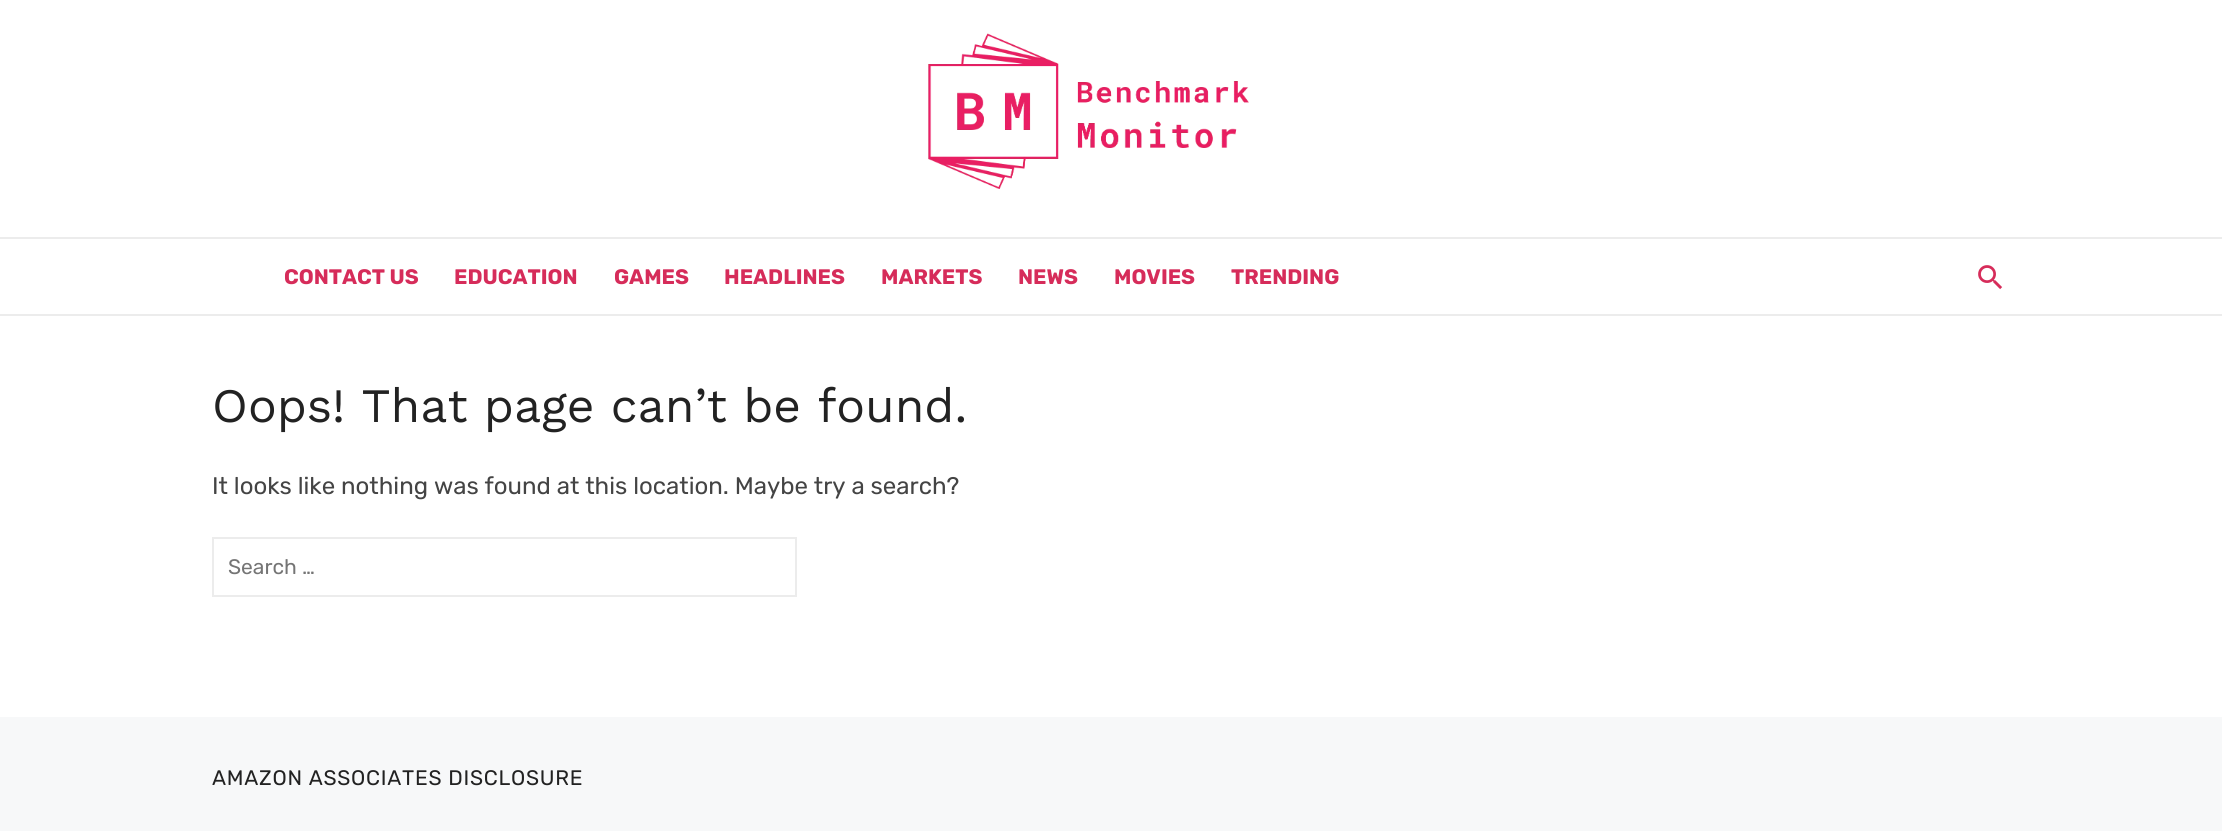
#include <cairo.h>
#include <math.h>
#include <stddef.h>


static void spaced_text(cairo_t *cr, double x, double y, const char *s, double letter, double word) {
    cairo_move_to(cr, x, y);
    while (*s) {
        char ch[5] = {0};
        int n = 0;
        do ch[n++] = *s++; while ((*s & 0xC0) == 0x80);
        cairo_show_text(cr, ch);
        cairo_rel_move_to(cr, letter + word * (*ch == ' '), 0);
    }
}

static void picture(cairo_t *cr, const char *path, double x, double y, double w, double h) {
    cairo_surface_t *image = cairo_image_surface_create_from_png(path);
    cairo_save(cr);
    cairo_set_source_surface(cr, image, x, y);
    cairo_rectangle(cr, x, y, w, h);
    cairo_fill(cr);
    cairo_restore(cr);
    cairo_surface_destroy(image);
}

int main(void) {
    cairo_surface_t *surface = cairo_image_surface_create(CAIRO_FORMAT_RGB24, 2222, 831);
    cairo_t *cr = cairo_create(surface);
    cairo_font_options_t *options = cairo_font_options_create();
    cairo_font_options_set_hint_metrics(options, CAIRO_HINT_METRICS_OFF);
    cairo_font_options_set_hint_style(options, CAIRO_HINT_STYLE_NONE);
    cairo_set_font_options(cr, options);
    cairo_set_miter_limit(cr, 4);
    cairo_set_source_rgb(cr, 1, 1, 1);
    cairo_paint(cr);
    picture(cr, "img1.png", 928, 33, 321, 156);
    cairo_set_source_rgb(cr, 0.922, 0.922, 0.922);
    cairo_rectangle(cr, 0, 237, 2222, 2);
    cairo_fill(cr);
    cairo_rectangle(cr, 0, 314, 2222, 2);
    cairo_fill(cr);
    cairo_select_font_face(cr, "Rubik", CAIRO_FONT_SLANT_NORMAL, CAIRO_FONT_WEIGHT_BOLD);
    cairo_set_font_size(cr, 21);
    cairo_set_source_rgb(cr, 0.839, 0.173, 0.353);
    cairo_move_to(cr, 284, 284);
    cairo_show_text(cr, "CONTACT US");
    cairo_move_to(cr, 454, 284);
    cairo_show_text(cr, "EDUCATION");
    cairo_move_to(cr, 614, 284);
    cairo_show_text(cr, "GAMES");
    cairo_move_to(cr, 724, 284);
    cairo_show_text(cr, "HEADLINES");
    cairo_move_to(cr, 881, 284);
    cairo_show_text(cr, "MARKETS");
    cairo_move_to(cr, 1018, 284);
    cairo_show_text(cr, "NEWS");
    cairo_move_to(cr, 1114, 284);
    cairo_show_text(cr, "MOVIES");
    cairo_move_to(cr, 1231, 284);
    cairo_show_text(cr, "TRENDING");
    picture(cr, "img2.png", 1978, 265, 25, 25);
    cairo_select_font_face(cr, "Work Sans", CAIRO_FONT_SLANT_NORMAL, CAIRO_FONT_WEIGHT_NORMAL);
    cairo_set_font_size(cr, 48);
    cairo_set_source_rgb(cr, 0.133, 0.133, 0.133);
    cairo_move_to(cr, 212, 422);
    cairo_show_text(cr, "Oops! That page can’t be found.");
    cairo_select_font_face(cr, "Rubik", CAIRO_FONT_SLANT_NORMAL, CAIRO_FONT_WEIGHT_NORMAL);
    cairo_set_font_size(cr, 24);
    cairo_set_source_rgb(cr, 0.267, 0.267, 0.267);
    cairo_move_to(cr, 212, 494);
    cairo_show_text(cr, "It looks like nothing was found at this location. Maybe try a search?");
    cairo_rectangle(cr, 213, 538, 583, 58);
    cairo_set_source_rgb(cr, 0.922, 0.922, 0.922);
    cairo_stroke(cr);
    cairo_set_font_size(cr, 21);
    cairo_set_source_rgb(cr, 0.459, 0.459, 0.459);
    cairo_move_to(cr, 228, 574);
    cairo_show_text(cr, "Search …");
    cairo_set_source_rgb(cr, 0.965, 0.969, 0.973);
    cairo_rectangle(cr, 0, 717, 2222, 114);
    cairo_fill(cr);
    cairo_set_source_rgb(cr, 0.133, 0.133, 0.133);
    spaced_text(cr, 212, 785, "AMAZON ASSOCIATES DISCLOSURE", 0.75, 0);
    cairo_surface_write_to_png(surface, "page.png");
    cairo_font_options_destroy(options);
    cairo_destroy(cr);
    cairo_surface_destroy(surface);
    return 0;
}
